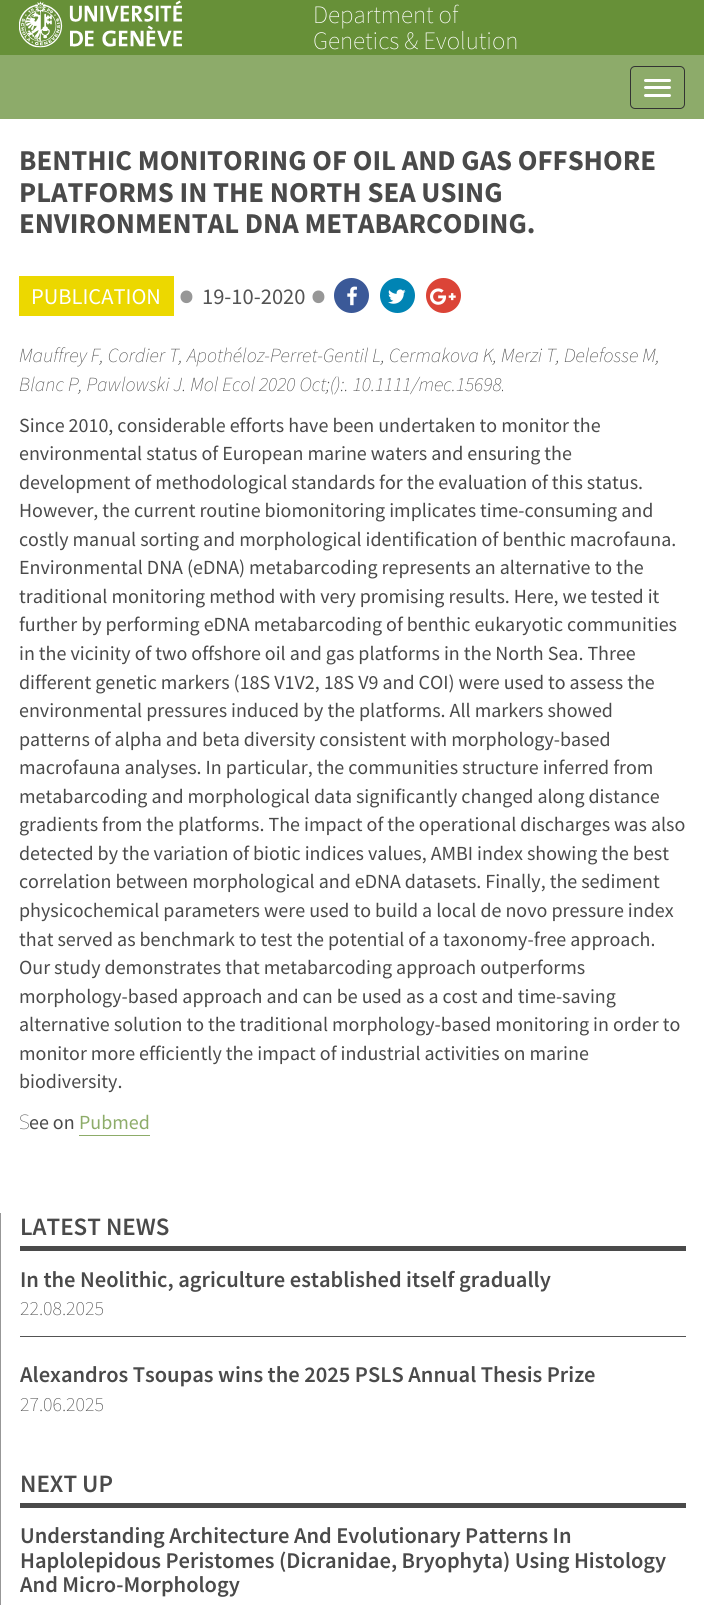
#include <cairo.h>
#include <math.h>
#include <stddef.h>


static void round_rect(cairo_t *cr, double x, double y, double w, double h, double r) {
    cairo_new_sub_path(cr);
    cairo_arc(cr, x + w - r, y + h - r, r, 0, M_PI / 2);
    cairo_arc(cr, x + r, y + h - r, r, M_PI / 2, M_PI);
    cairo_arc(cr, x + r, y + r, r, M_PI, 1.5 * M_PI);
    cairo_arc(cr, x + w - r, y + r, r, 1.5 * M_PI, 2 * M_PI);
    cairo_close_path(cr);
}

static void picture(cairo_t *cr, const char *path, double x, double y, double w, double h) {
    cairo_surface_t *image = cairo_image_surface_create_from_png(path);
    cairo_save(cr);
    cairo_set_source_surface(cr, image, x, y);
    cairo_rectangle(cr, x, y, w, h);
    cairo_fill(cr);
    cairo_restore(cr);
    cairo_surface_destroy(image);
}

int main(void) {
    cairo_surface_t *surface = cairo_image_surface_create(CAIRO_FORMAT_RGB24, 704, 1605);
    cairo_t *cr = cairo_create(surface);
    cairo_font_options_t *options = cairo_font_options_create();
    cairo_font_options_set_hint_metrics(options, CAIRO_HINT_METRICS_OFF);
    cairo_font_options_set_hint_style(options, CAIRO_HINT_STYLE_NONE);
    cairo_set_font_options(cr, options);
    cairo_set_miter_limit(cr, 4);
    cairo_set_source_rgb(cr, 1, 1, 1);
    cairo_paint(cr);
    cairo_set_source_rgb(cr, 0.404, 0.565, 0.22);
    cairo_rectangle(cr, 0, 0, 704, 55);
    cairo_fill(cr);
    picture(cr, "img1.png", 19, 0, 163, 48);
    cairo_select_font_face(cr, "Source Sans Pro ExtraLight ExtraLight", CAIRO_FONT_SLANT_NORMAL, CAIRO_FONT_WEIGHT_NORMAL);
    cairo_set_font_size(cr, 25);
    cairo_set_source_rgb(cr, 1, 1, 1);
    cairo_move_to(cr, 313, 23);
    cairo_show_text(cr, "Department of");
    cairo_move_to(cr, 313, 49);
    cairo_show_text(cr, "Genetics & Evolution");
    cairo_set_source_rgb(cr, 0.553, 0.671, 0.416);
    cairo_rectangle(cr, 0, 55, 704, 64);
    cairo_fill(cr);
    round_rect(cr, 630.5, 66.5, 54, 42, 4.5);
    cairo_set_source_rgb(cr, 0.2, 0.2, 0.2);
    cairo_set_line_width(cr, 1);
    cairo_stroke(cr);
    cairo_set_source_rgb(cr, 1, 1, 1);
    round_rect(cr, 644, 79, 27, 3, 1.5);
    cairo_fill(cr);
    round_rect(cr, 644, 86, 27, 3, 1.5);
    cairo_fill(cr);
    round_rect(cr, 644, 94, 27, 3, 1.5);
    cairo_fill(cr);
    cairo_select_font_face(cr, "Source Sans Pro", CAIRO_FONT_SLANT_NORMAL, CAIRO_FONT_WEIGHT_BOLD);
    cairo_set_font_size(cr, 28.75);
    cairo_set_source_rgb(cr, 0.29, 0.29, 0.29);
    cairo_move_to(cr, 19, 170);
    cairo_show_text(cr, "BENTHIC MONITORING OF OIL AND GAS OFFSHORE");
    cairo_move_to(cr, 19, 202);
    cairo_show_text(cr, "PLATFORMS IN THE NORTH SEA USING");
    cairo_move_to(cr, 19, 233);
    cairo_show_text(cr, "ENVIRONMENTAL DNA METABARCODING.");
    cairo_set_source_rgb(cr, 0.922, 0.847, 0);
    cairo_rectangle(cr, 19, 276, 155, 40);
    cairo_fill(cr);
    cairo_select_font_face(cr, "Source Sans Pro", CAIRO_FONT_SLANT_NORMAL, CAIRO_FONT_WEIGHT_NORMAL);
    cairo_set_font_size(cr, 22.5);
    cairo_set_source_rgb(cr, 1, 1, 1);
    cairo_move_to(cr, 31, 304);
    cairo_show_text(cr, "PUBLICATION");
    cairo_set_font_size(cr, 100);
    cairo_set_source_rgb(cr, 0.592, 0.592, 0.592);
    cairo_move_to(cr, 174, 329);
    cairo_show_text(cr, "·");
    cairo_set_font_size(cr, 22.5);
    cairo_set_source_rgb(cr, 0.325, 0.325, 0.325);
    cairo_move_to(cr, 202, 304);
    cairo_show_text(cr, "19-10-2020");
    cairo_set_font_size(cr, 100);
    cairo_set_source_rgb(cr, 0.592, 0.592, 0.592);
    cairo_move_to(cr, 306, 329);
    cairo_show_text(cr, "·");
    cairo_set_source_rgb(cr, 0.231, 0.349, 0.596);
    cairo_new_path(cr);
    cairo_arc(cr, 351.5, 295.5, 17.5, 0, 2 * M_PI);
    cairo_fill(cr);
    picture(cr, "img2.png", 347, 286, 10, 20);
    cairo_set_source_rgb(cr, 0, 0.518, 0.706);
    cairo_arc(cr, 397.5, 295.5, 17.5, 0, 2 * M_PI);
    cairo_fill(cr);
    picture(cr, "img3.png", 388, 289, 18, 15);
    cairo_set_source_rgb(cr, 0.859, 0.267, 0.216);
    cairo_arc(cr, 443.5, 295.5, 17.5, 0, 2 * M_PI);
    cairo_fill(cr);
    picture(cr, "img4.png", 430, 288, 26, 17);
    cairo_select_font_face(cr, "Source Sans Pro ExtraLight ExtraLight", CAIRO_FONT_SLANT_ITALIC, CAIRO_FONT_WEIGHT_NORMAL);
    cairo_set_font_size(cr, 20);
    cairo_set_source_rgb(cr, 0.29, 0.29, 0.29);
    cairo_move_to(cr, 19, 362);
    cairo_show_text(cr, "Mauffrey F, Cordier T, Apothéloz-Perret-Gentil L, Cermakova K, Merzi T, Delefosse M,");
    cairo_move_to(cr, 19, 391);
    cairo_show_text(cr, "Blanc P, Pawlowski J. Mol Ecol 2020 Oct;():. 10.1111/mec.15698.");
    cairo_select_font_face(cr, "Source Sans Pro", CAIRO_FONT_SLANT_NORMAL, CAIRO_FONT_WEIGHT_NORMAL);
    cairo_move_to(cr, 19, 432);
    cairo_show_text(cr, "Since 2010, considerable efforts have been undertaken to monitor the");
    cairo_move_to(cr, 19, 460);
    cairo_show_text(cr, "environmental status of European marine waters and ensuring the");
    cairo_move_to(cr, 19, 489);
    cairo_show_text(cr, "development of methodological standards for the evaluation of this status.");
    cairo_move_to(cr, 19, 517);
    cairo_show_text(cr, "However, the current routine biomonitoring implicates time-consuming and");
    cairo_move_to(cr, 19, 546);
    cairo_show_text(cr, "costly manual sorting and morphological identification of benthic macrofauna.");
    cairo_move_to(cr, 19, 574);
    cairo_show_text(cr, "Environmental DNA (eDNA) metabarcoding represents an alternative to the");
    cairo_move_to(cr, 19, 603);
    cairo_show_text(cr, "traditional monitoring method with very promising results. Here, we tested it");
    cairo_move_to(cr, 19, 631);
    cairo_show_text(cr, "further by performing eDNA metabarcoding of benthic eukaryotic communities");
    cairo_move_to(cr, 19, 660);
    cairo_show_text(cr, "in the vicinity of two offshore oil and gas platforms in the North Sea. Three");
    cairo_move_to(cr, 19, 689);
    cairo_show_text(cr, "different genetic markers (18S V1V2, 18S V9 and COI) were used to assess the");
    cairo_move_to(cr, 19, 717);
    cairo_show_text(cr, "environmental pressures induced by the platforms. All markers showed");
    cairo_move_to(cr, 19, 746);
    cairo_show_text(cr, "patterns of alpha and beta diversity consistent with morphology-based");
    cairo_move_to(cr, 19, 774);
    cairo_show_text(cr, "macrofauna analyses. In particular, the communities structure inferred from");
    cairo_move_to(cr, 19, 803);
    cairo_show_text(cr, "metabarcoding and morphological data significantly changed along distance");
    cairo_move_to(cr, 19, 831);
    cairo_show_text(cr, "gradients from the platforms. The impact of the operational discharges was also");
    cairo_move_to(cr, 19, 860);
    cairo_show_text(cr, "detected by the variation of biotic indices values, AMBI index showing the best");
    cairo_move_to(cr, 19, 888);
    cairo_show_text(cr, "correlation between morphological and eDNA datasets. Finally, the sediment");
    cairo_move_to(cr, 19, 917);
    cairo_show_text(cr, "physicochemical parameters were used to build a local de novo pressure index");
    cairo_move_to(cr, 19, 946);
    cairo_show_text(cr, "that served as benchmark to test the potential of a taxonomy-free approach.");
    cairo_move_to(cr, 19, 974);
    cairo_show_text(cr, "Our study demonstrates that metabarcoding approach outperforms");
    cairo_move_to(cr, 19, 1003);
    cairo_show_text(cr, "morphology-based approach and can be used as a cost and time-saving");
    cairo_move_to(cr, 19, 1031);
    cairo_show_text(cr, "alternative solution to the traditional morphology-based monitoring in order to");
    cairo_move_to(cr, 19, 1060);
    cairo_show_text(cr, "monitor more efficiently the impact of industrial activities on marine");
    cairo_move_to(cr, 19, 1088);
    cairo_show_text(cr, "biodiversity.");
    cairo_select_font_face(cr, "Noto Sans Thin", CAIRO_FONT_SLANT_NORMAL, CAIRO_FONT_WEIGHT_NORMAL);
    cairo_move_to(cr, 19, 1129);
    cairo_show_text(cr, "S");
    cairo_select_font_face(cr, "Source Sans Pro", CAIRO_FONT_SLANT_NORMAL, CAIRO_FONT_WEIGHT_NORMAL);
    cairo_move_to(cr, 29, 1129);
    cairo_show_text(cr, "ee on");
    cairo_set_source_rgb(cr, 0.553, 0.675, 0.412);
    cairo_move_to(cr, 79, 1129);
    cairo_show_text(cr, "Pubmed");
    cairo_rectangle(cr, 79, 1135, 71, 1);
    cairo_fill(cr);
    cairo_set_source_rgb(cr, 0.592, 0.592, 0.592);
    cairo_rectangle(cr, 0, 1213, 1, 392);
    cairo_fill(cr);
    cairo_set_source_rgb(cr, 0.29, 0.29, 0.29);
    cairo_rectangle(cr, 20, 1246, 666, 5);
    cairo_fill(cr);
    cairo_select_font_face(cr, "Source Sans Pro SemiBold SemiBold", CAIRO_FONT_SLANT_NORMAL, CAIRO_FONT_WEIGHT_NORMAL);
    cairo_set_font_size(cr, 25);
    cairo_move_to(cr, 20, 1235);
    cairo_show_text(cr, "LATEST NEWS");
    cairo_set_font_size(cr, 22.5);
    cairo_move_to(cr, 20, 1287);
    cairo_show_text(cr, "In the Neolithic, agriculture established itself gradually");
    cairo_select_font_face(cr, "Source Sans Pro ExtraLight ExtraLight", CAIRO_FONT_SLANT_NORMAL, CAIRO_FONT_WEIGHT_NORMAL);
    cairo_set_font_size(cr, 20);
    cairo_set_source_rgb(cr, 0.325, 0.325, 0.325);
    cairo_move_to(cr, 20, 1315);
    cairo_show_text(cr, "22.08.2025");
    cairo_rectangle(cr, 20, 1336, 666, 1);
    cairo_fill(cr);
    cairo_select_font_face(cr, "Source Sans Pro SemiBold SemiBold", CAIRO_FONT_SLANT_NORMAL, CAIRO_FONT_WEIGHT_NORMAL);
    cairo_set_font_size(cr, 22.5);
    cairo_set_source_rgb(cr, 0.29, 0.29, 0.29);
    cairo_move_to(cr, 20, 1382);
    cairo_show_text(cr, "Alexandros Tsoupas wins the 2025 PSLS Annual Thesis Prize");
    cairo_select_font_face(cr, "Source Sans Pro ExtraLight ExtraLight", CAIRO_FONT_SLANT_NORMAL, CAIRO_FONT_WEIGHT_NORMAL);
    cairo_set_font_size(cr, 20);
    cairo_set_source_rgb(cr, 0.325, 0.325, 0.325);
    cairo_move_to(cr, 20, 1411);
    cairo_show_text(cr, "27.06.2025");
    cairo_set_source_rgb(cr, 0.29, 0.29, 0.29);
    cairo_rectangle(cr, 20, 1503, 666, 5);
    cairo_fill(cr);
    cairo_select_font_face(cr, "Source Sans Pro SemiBold SemiBold", CAIRO_FONT_SLANT_NORMAL, CAIRO_FONT_WEIGHT_NORMAL);
    cairo_set_font_size(cr, 25);
    cairo_move_to(cr, 20, 1492);
    cairo_show_text(cr, "NEXT UP");
    cairo_set_font_size(cr, 22.5);
    cairo_move_to(cr, 20, 1543);
    cairo_show_text(cr, "Understanding Architecture And Evolutionary Patterns In");
    cairo_move_to(cr, 20, 1568);
    cairo_show_text(cr, "Haplolepidous Peristomes (Dicranidae, Bryophyta) Using Histology");
    cairo_move_to(cr, 20, 1592);
    cairo_show_text(cr, "And Micro-Morphology");
    cairo_surface_write_to_png(surface, "page.png");
    cairo_font_options_destroy(options);
    cairo_destroy(cr);
    cairo_surface_destroy(surface);
    return 0;
}
